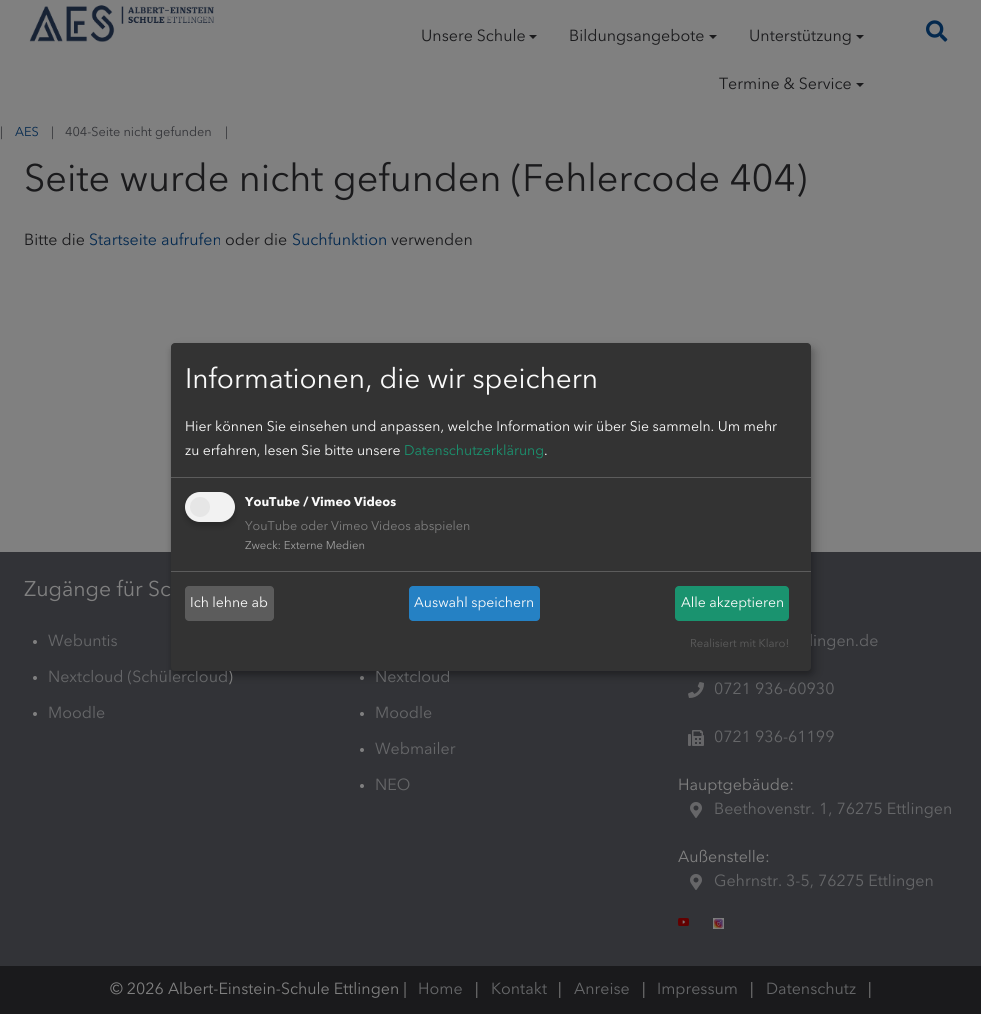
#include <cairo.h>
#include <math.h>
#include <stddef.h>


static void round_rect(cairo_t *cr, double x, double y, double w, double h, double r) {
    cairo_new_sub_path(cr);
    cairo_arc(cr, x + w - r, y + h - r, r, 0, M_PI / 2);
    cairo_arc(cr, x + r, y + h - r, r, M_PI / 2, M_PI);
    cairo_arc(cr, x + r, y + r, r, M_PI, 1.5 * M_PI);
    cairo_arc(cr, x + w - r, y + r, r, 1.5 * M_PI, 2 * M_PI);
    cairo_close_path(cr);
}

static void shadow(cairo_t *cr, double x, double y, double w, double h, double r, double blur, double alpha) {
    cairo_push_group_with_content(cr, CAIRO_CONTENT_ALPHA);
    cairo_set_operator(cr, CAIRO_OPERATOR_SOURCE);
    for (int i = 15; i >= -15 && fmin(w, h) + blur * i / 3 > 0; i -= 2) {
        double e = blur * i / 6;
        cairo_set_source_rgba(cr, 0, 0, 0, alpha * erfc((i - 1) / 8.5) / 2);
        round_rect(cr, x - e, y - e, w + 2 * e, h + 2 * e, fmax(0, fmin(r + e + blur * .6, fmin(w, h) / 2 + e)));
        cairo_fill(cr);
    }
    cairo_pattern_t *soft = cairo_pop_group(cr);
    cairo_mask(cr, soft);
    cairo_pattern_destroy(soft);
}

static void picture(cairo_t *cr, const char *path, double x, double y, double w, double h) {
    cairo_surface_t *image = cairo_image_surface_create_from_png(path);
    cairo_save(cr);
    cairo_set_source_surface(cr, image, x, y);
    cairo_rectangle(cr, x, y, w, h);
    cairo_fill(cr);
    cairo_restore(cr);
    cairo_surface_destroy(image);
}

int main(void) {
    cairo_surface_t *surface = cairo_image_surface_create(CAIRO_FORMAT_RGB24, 981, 1014);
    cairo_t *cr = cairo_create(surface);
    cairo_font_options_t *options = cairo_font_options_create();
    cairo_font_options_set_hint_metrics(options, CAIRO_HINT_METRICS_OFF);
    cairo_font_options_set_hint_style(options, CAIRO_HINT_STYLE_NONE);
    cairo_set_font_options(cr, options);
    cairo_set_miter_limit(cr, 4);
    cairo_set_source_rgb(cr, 0.502, 0.502, 0.502);
    cairo_paint(cr);
    picture(cr, "img1.png", 29, 5, 185, 37);
    cairo_select_font_face(cr, "Avenir Next", CAIRO_FONT_SLANT_NORMAL, CAIRO_FONT_WEIGHT_NORMAL);
    cairo_set_font_size(cr, 16);
    cairo_set_source_rgb(cr, 0.102, 0.102, 0.11);
    cairo_move_to(cr, 421, 41);
    cairo_show_text(cr, "Unsere Schule");
    cairo_new_path(cr);
    cairo_move_to(cr, 529, 35);
    cairo_line_to(cr, 537, 35);
    cairo_line_to(cr, 533, 39);
    cairo_close_path(cr);
    cairo_fill(cr);
    cairo_move_to(cr, 569, 41);
    cairo_show_text(cr, "Bildungsangebote");
    cairo_new_path(cr);
    cairo_move_to(cr, 709, 35);
    cairo_line_to(cr, 717, 35);
    cairo_line_to(cr, 713, 39);
    cairo_close_path(cr);
    cairo_fill(cr);
    cairo_move_to(cr, 749, 41);
    cairo_show_text(cr, "Unterstützung");
    cairo_new_path(cr);
    cairo_move_to(cr, 856, 35);
    cairo_line_to(cr, 864, 35);
    cairo_line_to(cr, 860, 39);
    cairo_close_path(cr);
    cairo_fill(cr);
    cairo_move_to(cr, 719, 89);
    cairo_show_text(cr, "Termine & Service");
    cairo_new_path(cr);
    cairo_move_to(cr, 856, 83);
    cairo_line_to(cr, 864, 83);
    cairo_line_to(cr, 860, 87);
    cairo_close_path(cr);
    cairo_fill(cr);
    picture(cr, "img2.png", 926, 20, 22, 22);
    cairo_set_font_size(cr, 12.75);
    cairo_set_source_rgb(cr, 0.196, 0.2, 0.216);
    cairo_move_to(cr, 0, 136);
    cairo_show_text(cr, "|");
    cairo_set_source_rgb(cr, 0.016, 0.161, 0.31);
    cairo_move_to(cr, 15, 136);
    cairo_show_text(cr, "AES");
    cairo_set_source_rgb(cr, 0.196, 0.2, 0.216);
    cairo_move_to(cr, 51, 136);
    cairo_show_text(cr, "|");
    cairo_move_to(cr, 65, 136);
    cairo_show_text(cr, "404-Seite nicht gefunden");
    cairo_move_to(cr, 225, 136);
    cairo_show_text(cr, "|");
    cairo_set_font_size(cr, 37.9);
    cairo_set_source_rgb(cr, 0.102, 0.102, 0.11);
    cairo_move_to(cr, 24, 191);
    cairo_show_text(cr, "Seite wurde nicht gefunden (Fehlercode 404)");
    cairo_set_font_size(cr, 16);
    cairo_move_to(cr, 24, 245);
    cairo_show_text(cr, "Bitte die");
    cairo_set_source_rgb(cr, 0.016, 0.161, 0.31);
    cairo_move_to(cr, 89, 245);
    cairo_show_text(cr, "Startseite aufrufen");
    cairo_set_source_rgb(cr, 0.102, 0.102, 0.11);
    cairo_move_to(cr, 225, 245);
    cairo_show_text(cr, "oder die");
    cairo_set_source_rgb(cr, 0.016, 0.161, 0.31);
    cairo_move_to(cr, 292, 245);
    cairo_show_text(cr, "Suchfunktion");
    cairo_set_source_rgb(cr, 0.102, 0.102, 0.11);
    cairo_move_to(cr, 391, 245);
    cairo_show_text(cr, "verwenden");
    cairo_set_source_rgb(cr, 0.196, 0.2, 0.216);
    cairo_rectangle(cr, 0, 552, 981, 414);
    cairo_fill(cr);
    cairo_set_source_rgb(cr, 0.502, 0.502, 0.502);
    cairo_arc(cr, 362, 678, 2, 0, 2 * M_PI);
    cairo_fill(cr);
    picture(cr, "img3.png", 688, 682, 16, 16);
    cairo_set_source_rgb(cr, 0, 0, 0);
    shadow(cr, 176, 348, 640, 328, 4, 5, 0.19);
    shadow(cr, 171, 347, 640, 328, 4, 3, 0.2);
    cairo_set_source_rgb(cr, 0.4, 0.404, 0.412);
    cairo_move_to(cr, 48, 682);
    cairo_show_text(cr, "Nextcloud (Schülercloud");
    cairo_set_source_rgb(cr, 0.502, 0.502, 0.502);
    cairo_move_to(cr, 228, 682);
    cairo_show_text(cr, ")");
    cairo_set_source_rgb(cr, 0.4, 0.404, 0.412);
    cairo_move_to(cr, 375, 682);
    cairo_show_text(cr, "Nextcloud");
    cairo_move_to(cr, 809, 646);
    cairo_show_text(cr, "lingen.de");
    cairo_set_source_rgb(cr, 0.2, 0.2, 0.2);
    round_rect(cr, 171, 343, 640, 328, 4);
    cairo_fill(cr);
    cairo_set_source_rgb(cr, 0.361, 0.361, 0.361);
    cairo_rectangle(cr, 171, 477, 640, 1);
    cairo_fill(cr);
    cairo_set_font_size(cr, 28);
    cairo_set_source_rgb(cr, 0.98, 0.98, 0.98);
    cairo_move_to(cr, 185, 388);
    cairo_show_text(cr, "Informationen, die wir speichern");
    cairo_set_font_size(cr, 14);
    cairo_move_to(cr, 185, 431);
    cairo_show_text(cr, "Hier können Sie einsehen und anpassen, welche Information wir über Sie sammeln. Um mehr");
    cairo_move_to(cr, 185, 455);
    cairo_show_text(cr, "zu erfahren, lesen Sie bitte unsere");
    cairo_set_source_rgb(cr, 0.102, 0.576, 0.435);
    cairo_move_to(cr, 404, 455);
    cairo_show_text(cr, "Datenschutzerklärung");
    cairo_set_source_rgb(cr, 0.98, 0.98, 0.98);
    cairo_move_to(cr, 544, 455);
    cairo_show_text(cr, ".");
    cairo_set_source_rgb(cr, 0, 0, 0);
    shadow(cr, 185, 496, 50, 30, 15, 3, 0.2);
    cairo_set_source_rgb(cr, 0.949, 0.949, 0.949);
    round_rect(cr, 185, 492, 50, 30, 15);
    cairo_fill(cr);
    cairo_set_source_rgb(cr, 0.902, 0.902, 0.902);
    cairo_arc(cr, 200, 507, 10, 0, 2 * M_PI);
    cairo_fill(cr);
    cairo_select_font_face(cr, "Avenir Next", CAIRO_FONT_SLANT_NORMAL, CAIRO_FONT_WEIGHT_BOLD);
    cairo_set_font_size(cr, 12.6);
    cairo_set_source_rgb(cr, 0.98, 0.98, 0.98);
    cairo_move_to(cr, 245, 506);
    cairo_show_text(cr, "YouTube / Vimeo Videos");
    cairo_select_font_face(cr, "Avenir Next", CAIRO_FONT_SLANT_NORMAL, CAIRO_FONT_WEIGHT_NORMAL);
    cairo_set_source_rgb(cr, 0.502, 0.502, 0.502);
    cairo_move_to(cr, 245, 530);
    cairo_show_text(cr, "YouTube oder Vimeo Videos abspielen");
    cairo_set_font_size(cr, 11.25);
    cairo_set_source_rgb(cr, 0.627, 0.627, 0.627);
    cairo_move_to(cr, 245, 549);
    cairo_show_text(cr, "Zweck: Externe Medien");
    cairo_set_source_rgb(cr, 0.361, 0.361, 0.361);
    cairo_rectangle(cr, 171, 571, 640, 1);
    cairo_fill(cr);
    round_rect(cr, 185, 586, 89, 35, 4);
    cairo_fill(cr);
    cairo_set_font_size(cr, 14);
    cairo_set_source_rgb(cr, 0.98, 0.98, 0.98);
    cairo_move_to(cr, 190, 607);
    cairo_show_text(cr, "Ich lehne ab");
    cairo_set_source_rgb(cr, 0.145, 0.506, 0.769);
    round_rect(cr, 409, 586, 131, 35, 4);
    cairo_fill(cr);
    cairo_set_source_rgb(cr, 0.98, 0.98, 0.98);
    cairo_move_to(cr, 414, 607);
    cairo_show_text(cr, "Auswahl speichern");
    cairo_set_source_rgb(cr, 0.102, 0.576, 0.435);
    round_rect(cr, 675, 586, 114, 35, 4);
    cairo_fill(cr);
    cairo_set_source_rgb(cr, 0.98, 0.98, 0.98);
    cairo_move_to(cr, 681, 607);
    cairo_show_text(cr, "Alle akzeptieren");
    cairo_set_font_size(cr, 11.25);
    cairo_set_source_rgb(cr, 0.361, 0.361, 0.361);
    cairo_move_to(cr, 690, 647);
    cairo_show_text(cr, "Realisiert mit Klaro!");
    cairo_set_font_size(cr, 21.25);
    cairo_set_source_rgb(cr, 0.502, 0.502, 0.502);
    cairo_move_to(cr, 24, 596);
    cairo_show_text(cr, "Zugänge für Sc");
    cairo_new_path(cr);
    cairo_arc(cr, 35, 642, 2, 0, 2 * M_PI);
    cairo_fill(cr);
    cairo_set_font_size(cr, 16);
    cairo_set_source_rgb(cr, 0.4, 0.404, 0.412);
    cairo_move_to(cr, 48, 646);
    cairo_show_text(cr, "Webuntis");
    cairo_set_source_rgb(cr, 0.502, 0.502, 0.502);
    cairo_new_path(cr);
    cairo_arc(cr, 35, 678, 2, 0, 2 * M_PI);
    cairo_fill(cr);
    cairo_arc(cr, 35, 714, 2, 0, 2 * M_PI);
    cairo_fill(cr);
    cairo_set_source_rgb(cr, 0.4, 0.404, 0.412);
    cairo_move_to(cr, 48, 718);
    cairo_show_text(cr, "Moodle");
    cairo_set_source_rgb(cr, 0.502, 0.502, 0.502);
    cairo_new_path(cr);
    cairo_arc(cr, 362, 714, 2, 0, 2 * M_PI);
    cairo_fill(cr);
    cairo_set_source_rgb(cr, 0.4, 0.404, 0.412);
    cairo_move_to(cr, 375, 718);
    cairo_show_text(cr, "Moodle");
    cairo_set_source_rgb(cr, 0.502, 0.502, 0.502);
    cairo_new_path(cr);
    cairo_arc(cr, 362, 750, 2, 0, 2 * M_PI);
    cairo_fill(cr);
    cairo_set_source_rgb(cr, 0.4, 0.404, 0.412);
    cairo_move_to(cr, 375, 754);
    cairo_show_text(cr, "Webmailer");
    cairo_set_source_rgb(cr, 0.502, 0.502, 0.502);
    cairo_new_path(cr);
    cairo_arc(cr, 362, 786, 2, 0, 2 * M_PI);
    cairo_fill(cr);
    cairo_set_source_rgb(cr, 0.4, 0.404, 0.412);
    cairo_move_to(cr, 375, 790);
    cairo_show_text(cr, "NEO");
    cairo_move_to(cr, 714, 694);
    cairo_show_text(cr, "0721 936-60930");
    picture(cr, "img4.png", 688, 730, 16, 16);
    cairo_move_to(cr, 714, 742);
    cairo_show_text(cr, "0721 936-61199");
    cairo_set_source_rgb(cr, 0.502, 0.502, 0.502);
    cairo_move_to(cr, 678, 790);
    cairo_show_text(cr, "Hauptgebäude:");
    picture(cr, "img5.png", 690, 802, 12, 16);
    cairo_set_source_rgb(cr, 0.4, 0.404, 0.412);
    cairo_move_to(cr, 714, 814);
    cairo_show_text(cr, "Beethovenstr. 1, 76275 Ettlingen");
    cairo_set_source_rgb(cr, 0.502, 0.502, 0.502);
    cairo_move_to(cr, 678, 862);
    cairo_show_text(cr, "Außenstelle:");
    picture(cr, "img5.png", 690, 874, 12, 16);
    cairo_set_source_rgb(cr, 0.4, 0.404, 0.412);
    cairo_move_to(cr, 714, 886);
    cairo_show_text(cr, "Gehrnstr. 3-5, 76275 Ettlingen");
    picture(cr, "img6.png", 678, 918, 11, 8);
    picture(cr, "img7.png", 713, 918, 11, 11);
    cairo_set_source_rgb(cr, 0.102, 0.102, 0.11);
    cairo_rectangle(cr, 0, 966, 981, 48);
    cairo_fill(cr);
    cairo_set_source_rgb(cr, 0.502, 0.502, 0.502);
    cairo_move_to(cr, 110, 994);
    cairo_show_text(cr, "© 2026 Albert-Einstein-Schule Ettlingen |");
    cairo_set_source_rgb(cr, 0.4, 0.404, 0.412);
    cairo_move_to(cr, 418, 994);
    cairo_show_text(cr, "Home");
    cairo_set_source_rgb(cr, 0.502, 0.502, 0.502);
    cairo_move_to(cr, 475, 994);
    cairo_show_text(cr, "|");
    cairo_set_source_rgb(cr, 0.4, 0.404, 0.412);
    cairo_move_to(cr, 491, 994);
    cairo_show_text(cr, "Kontakt");
    cairo_set_source_rgb(cr, 0.502, 0.502, 0.502);
    cairo_move_to(cr, 558, 994);
    cairo_show_text(cr, "|");
    cairo_set_source_rgb(cr, 0.4, 0.404, 0.412);
    cairo_move_to(cr, 574, 994);
    cairo_show_text(cr, "Anreise");
    cairo_set_source_rgb(cr, 0.502, 0.502, 0.502);
    cairo_move_to(cr, 642, 994);
    cairo_show_text(cr, "|");
    cairo_set_source_rgb(cr, 0.4, 0.404, 0.412);
    cairo_move_to(cr, 657, 994);
    cairo_show_text(cr, "Impressum");
    cairo_set_source_rgb(cr, 0.502, 0.502, 0.502);
    cairo_move_to(cr, 750, 994);
    cairo_show_text(cr, "|");
    cairo_set_source_rgb(cr, 0.4, 0.404, 0.412);
    cairo_move_to(cr, 766, 994);
    cairo_show_text(cr, "Datenschutz");
    cairo_set_source_rgb(cr, 0.502, 0.502, 0.502);
    cairo_move_to(cr, 868, 994);
    cairo_show_text(cr, "|");
    cairo_surface_write_to_png(surface, "page.png");
    cairo_font_options_destroy(options);
    cairo_destroy(cr);
    cairo_surface_destroy(surface);
    return 0;
}
